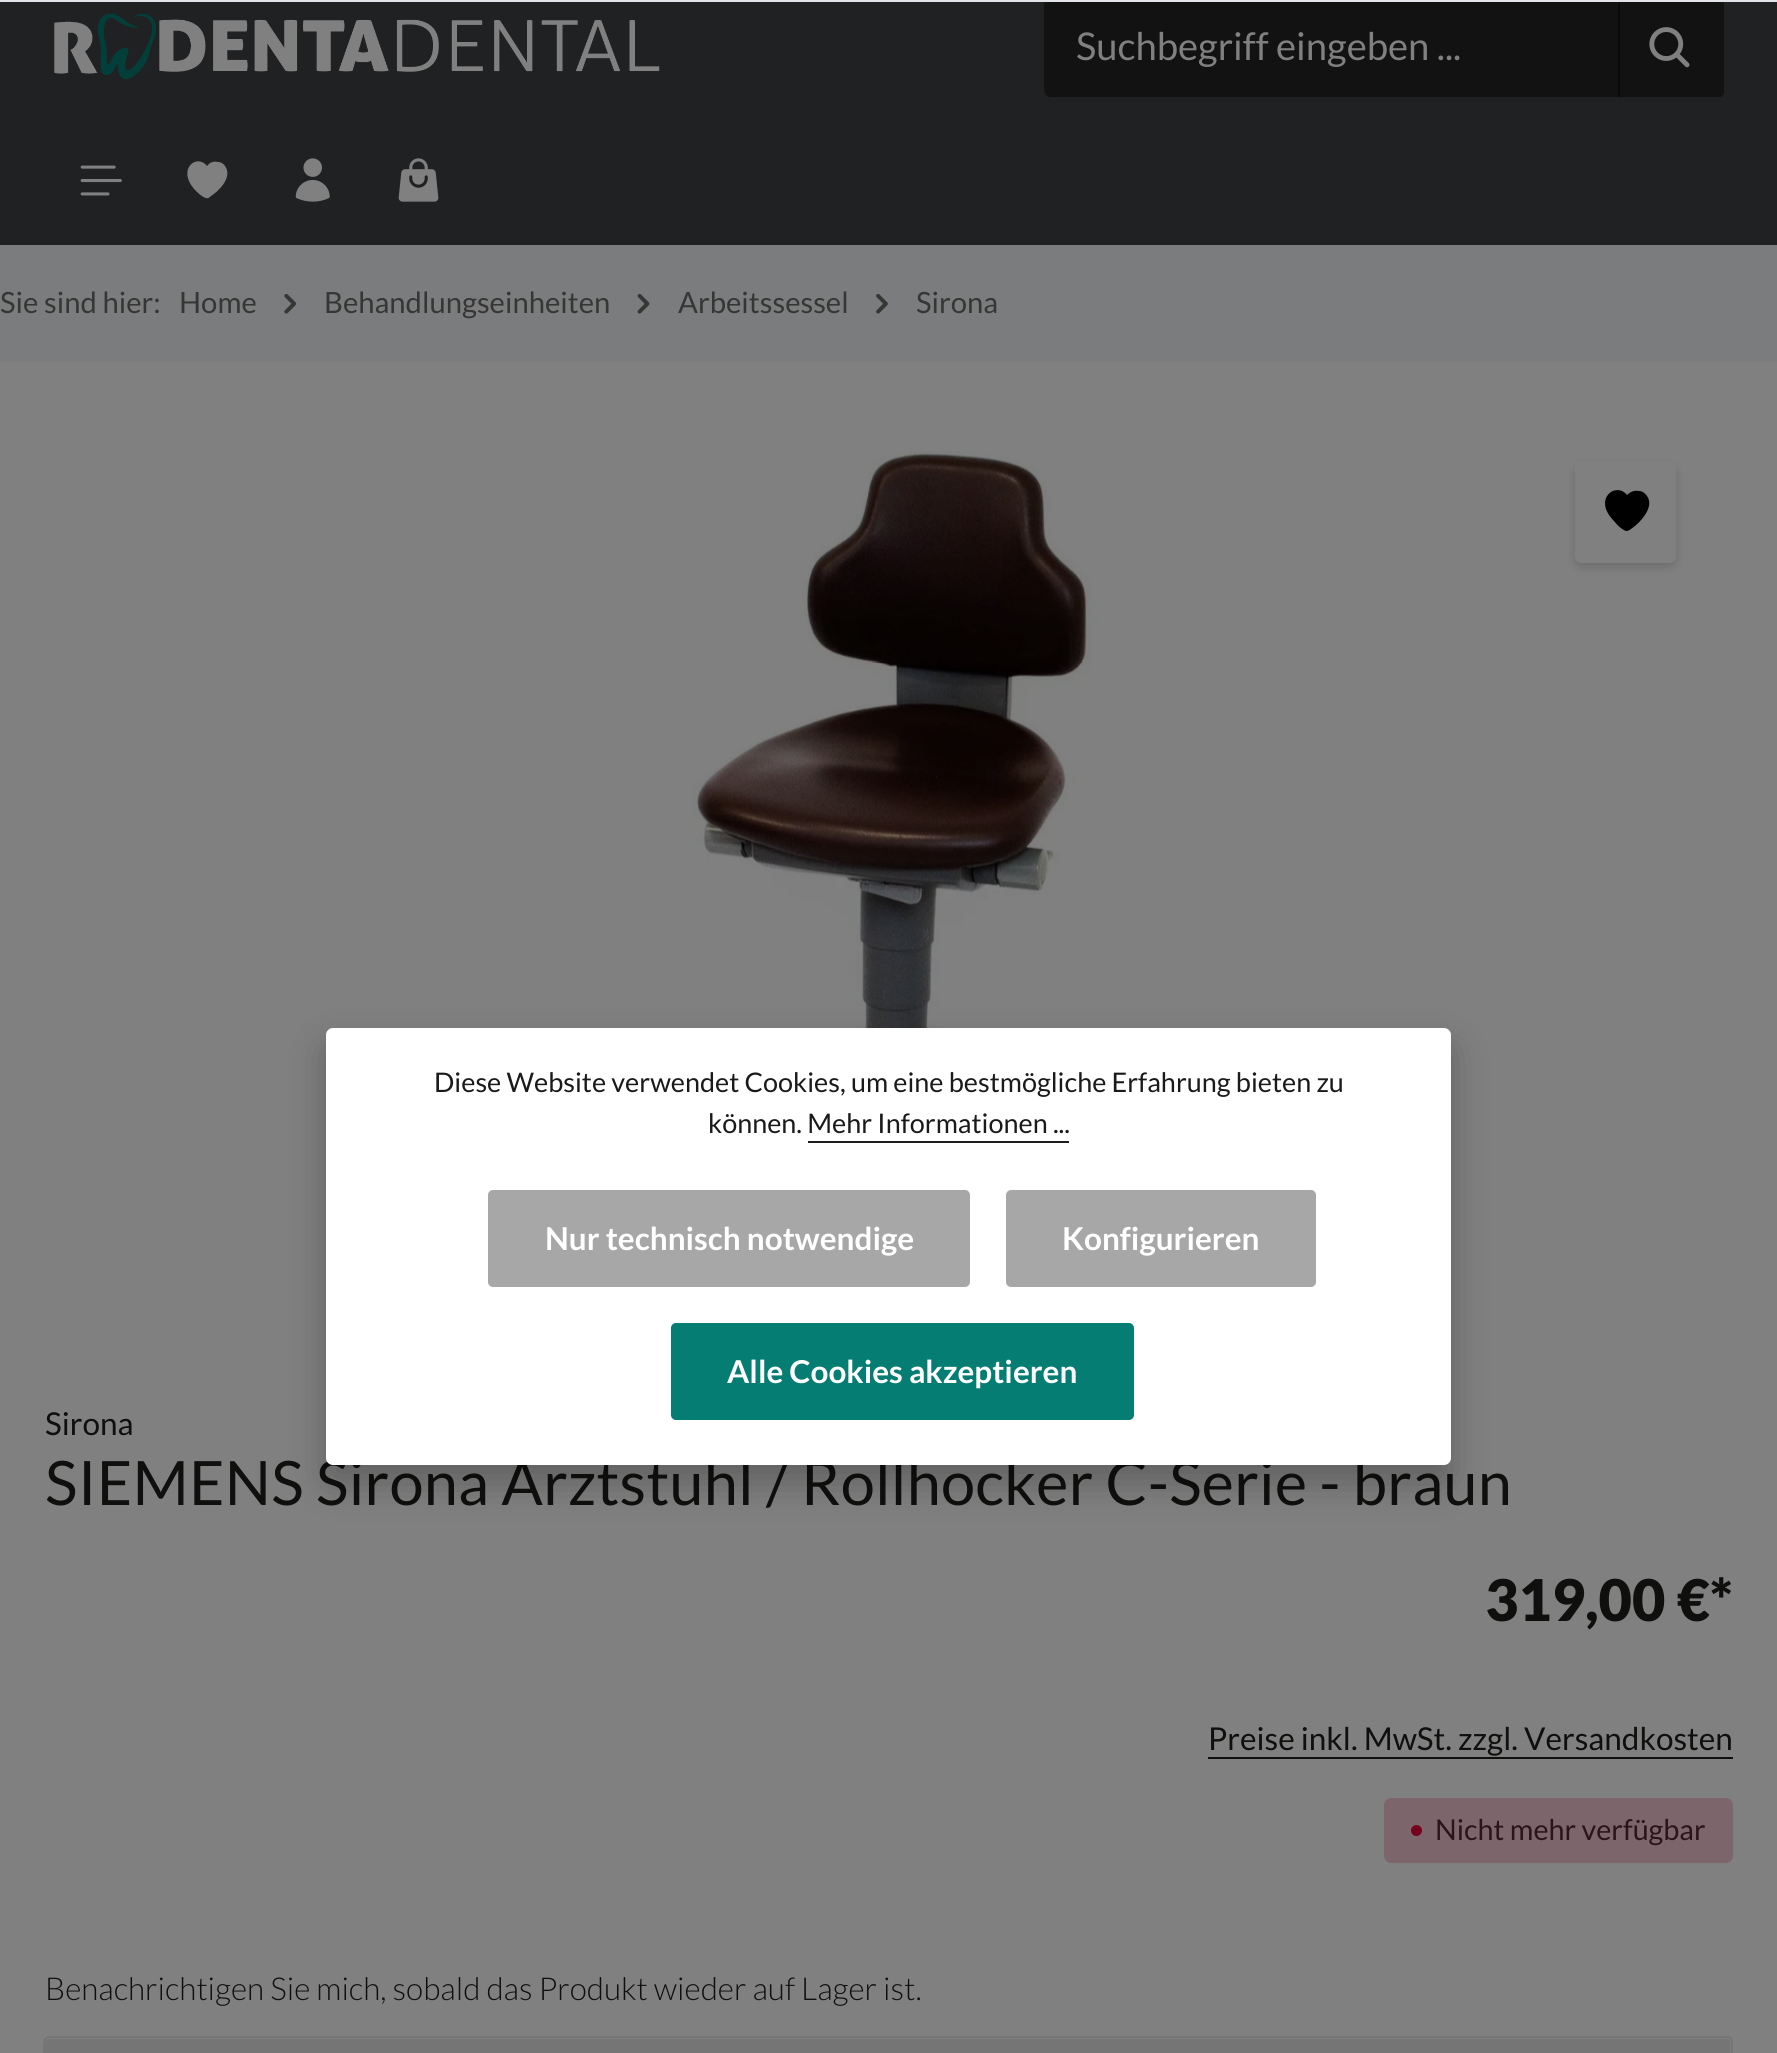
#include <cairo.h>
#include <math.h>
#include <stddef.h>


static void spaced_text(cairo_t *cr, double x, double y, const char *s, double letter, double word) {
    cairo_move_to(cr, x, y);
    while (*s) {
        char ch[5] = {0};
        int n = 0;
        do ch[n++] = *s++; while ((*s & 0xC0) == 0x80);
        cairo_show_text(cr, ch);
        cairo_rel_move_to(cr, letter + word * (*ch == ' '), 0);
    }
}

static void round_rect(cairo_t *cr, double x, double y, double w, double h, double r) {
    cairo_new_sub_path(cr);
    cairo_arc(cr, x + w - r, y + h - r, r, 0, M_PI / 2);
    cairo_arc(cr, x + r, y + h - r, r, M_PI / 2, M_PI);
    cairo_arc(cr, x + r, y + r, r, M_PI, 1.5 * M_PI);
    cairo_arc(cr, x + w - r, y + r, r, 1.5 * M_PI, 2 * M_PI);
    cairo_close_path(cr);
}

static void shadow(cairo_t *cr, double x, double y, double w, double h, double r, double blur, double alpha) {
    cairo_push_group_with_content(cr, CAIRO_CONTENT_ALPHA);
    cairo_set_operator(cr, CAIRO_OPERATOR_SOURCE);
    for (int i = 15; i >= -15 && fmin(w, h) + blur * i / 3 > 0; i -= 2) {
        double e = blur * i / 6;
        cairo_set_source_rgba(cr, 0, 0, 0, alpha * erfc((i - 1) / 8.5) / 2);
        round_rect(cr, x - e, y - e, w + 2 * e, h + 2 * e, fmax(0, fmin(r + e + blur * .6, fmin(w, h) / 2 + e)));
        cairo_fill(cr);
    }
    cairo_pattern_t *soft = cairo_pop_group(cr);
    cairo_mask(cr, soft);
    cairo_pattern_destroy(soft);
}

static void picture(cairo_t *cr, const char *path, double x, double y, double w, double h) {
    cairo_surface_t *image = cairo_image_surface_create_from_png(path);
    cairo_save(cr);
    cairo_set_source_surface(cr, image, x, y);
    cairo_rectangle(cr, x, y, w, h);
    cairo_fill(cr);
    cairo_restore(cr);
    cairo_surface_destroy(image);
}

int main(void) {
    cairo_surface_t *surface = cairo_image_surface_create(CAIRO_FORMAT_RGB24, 1777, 2053);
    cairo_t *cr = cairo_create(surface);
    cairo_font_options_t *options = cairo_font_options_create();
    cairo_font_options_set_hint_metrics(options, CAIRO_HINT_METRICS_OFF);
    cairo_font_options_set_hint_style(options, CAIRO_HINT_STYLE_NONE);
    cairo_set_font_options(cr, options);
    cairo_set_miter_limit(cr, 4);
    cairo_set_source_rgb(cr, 0.482, 0.486, 0.49);
    cairo_paint(cr);
    cairo_set_source_rgb(cr, 0.125, 0.129, 0.133);
    cairo_rectangle(cr, 0, 2, 1777, 243);
    cairo_fill(cr);
    picture(cr, "img1.png", 54, 13, 606, 66);
    cairo_set_source_rgb(cr, 0.071, 0.071, 0.075);
    cairo_new_path(cr);
    cairo_move_to(cr, 1051, -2);
    cairo_line_to(cr, 1620, -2);
    cairo_line_to(cr, 1620, 97);
    cairo_line_to(cr, 1051, 97);
    cairo_curve_to(cr, 1047, 97, 1044, 94, 1044, 90);
    cairo_line_to(cr, 1044, 5);
    cairo_curve_to(cr, 1044, 1, 1047, -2, 1051, -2);
    cairo_close_path(cr);
    cairo_fill(cr);
    cairo_select_font_face(cr, "Lato", CAIRO_FONT_SLANT_NORMAL, CAIRO_FONT_WEIGHT_NORMAL);
    cairo_set_font_size(cr, 38.25);
    cairo_set_source_rgb(cr, 0.502, 0.502, 0.502);
    cairo_move_to(cr, 1076, 60);
    cairo_show_text(cr, "Suchbegriff eingeben ...");
    cairo_set_source_rgba(cr, 0, 0, 0, 0.45);
    cairo_new_path(cr);
    cairo_move_to(cr, 1618, -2);
    cairo_line_to(cr, 1719, -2);
    cairo_curve_to(cr, 1722, -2, 1724, 0, 1724, 3);
    cairo_line_to(cr, 1724, 92);
    cairo_curve_to(cr, 1724, 95, 1722, 97, 1719, 97);
    cairo_line_to(cr, 1618, 97);
    cairo_close_path(cr);
    cairo_fill(cr);
    picture(cr, "img2.png", 1649, 27, 41, 41);
    picture(cr, "img3.png", 80, 165, 42, 31);
    cairo_set_source_rgb(cr, 0.502, 0.502, 0.502);
    cairo_set_fill_rule(cr, CAIRO_FILL_RULE_EVEN_ODD);
    cairo_new_path(cr);
    cairo_move_to(cr, 206, 198);
    cairo_curve_to(cr, 202, 197, 198, 193, 195, 190);
    cairo_curve_to(cr, 176, 169, 197, 153, 207, 166);
    cairo_curve_to(cr, 210, 162, 214, 161, 218, 162);
    cairo_curve_to(cr, 221, 162, 224, 164, 225, 166);
    cairo_curve_to(cr, 233, 177, 219, 191, 211, 196);
    cairo_curve_to(cr, 210, 197, 208, 199, 206, 198);
    cairo_close_path(cr);
    cairo_fill(cr);
    picture(cr, "img4.png", 295, 158, 35, 44);
    picture(cr, "img5.png", 398, 158, 41, 44);
    cairo_set_font_size(cr, 29.25);
    cairo_set_source_rgb(cr, 0.212, 0.212, 0.204);
    cairo_move_to(cr, 0, 313);
    cairo_show_text(cr, "Sie sind hier:");
    cairo_move_to(cr, 179, 313);
    cairo_show_text(cr, "Home");
    picture(cr, "img6.png", 284, 293, 13, 21);
    cairo_move_to(cr, 324, 313);
    cairo_show_text(cr, "Behandlungseinheiten");
    picture(cr, "img7.png", 637, 293, 13, 21);
    cairo_move_to(cr, 678, 313);
    cairo_show_text(cr, "Arbeitssessel");
    picture(cr, "img8.png", 876, 294, 12, 20);
    cairo_move_to(cr, 916, 313);
    cairo_show_text(cr, "Sirona");
    cairo_set_source_rgb(cr, 0.502, 0.502, 0.502);
    cairo_rectangle(cr, 0, 362, 1777, 1691);
    cairo_fill(cr);
    picture(cr, "img9.png", 691, 451, 424, 577);
    cairo_save(cr);
    cairo_new_path(cr);
    cairo_move_to(cr, 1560, 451);
    cairo_line_to(cr, 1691, 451);
    cairo_line_to(cr, 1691, 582);
    cairo_line_to(cr, 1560, 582);
    cairo_close_path(cr);
    cairo_move_to(cr, 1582, 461);
    cairo_line_to(cr, 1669, 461);
    cairo_curve_to(cr, 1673, 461, 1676, 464, 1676, 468);
    cairo_line_to(cr, 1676, 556);
    cairo_curve_to(cr, 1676, 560, 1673, 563, 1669, 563);
    cairo_line_to(cr, 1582, 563);
    cairo_curve_to(cr, 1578, 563, 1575, 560, 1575, 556);
    cairo_line_to(cr, 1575, 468);
    cairo_curve_to(cr, 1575, 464, 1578, 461, 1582, 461);
    cairo_close_path(cr);
    cairo_clip(cr);
    cairo_set_source_rgb(cr, 0, 0, 0);
    shadow(cr, 1575, 466, 101, 101, 7, 4.5, 0.15);
    cairo_restore(cr);
    cairo_set_source_rgb(cr, 0, 0, 0);
    cairo_new_path(cr);
    cairo_move_to(cr, 1626, 531);
    cairo_curve_to(cr, 1621, 529, 1617, 525, 1614, 521);
    cairo_curve_to(cr, 1592, 499, 1616, 481, 1627, 495);
    cairo_curve_to(cr, 1630, 492, 1634, 490, 1639, 491);
    cairo_curve_to(cr, 1642, 491, 1645, 493, 1647, 496);
    cairo_curve_to(cr, 1655, 507, 1640, 523, 1631, 529);
    cairo_curve_to(cr, 1630, 530, 1628, 531, 1626, 531);
    cairo_close_path(cr);
    cairo_fill(cr);
    cairo_set_font_size(cr, 31.5);
    cairo_set_source_rgb(cr, 0.059, 0.059, 0.055);
    cairo_move_to(cr, 45, 1435);
    cairo_show_text(cr, "Sirona");
    cairo_set_font_size(cr, 61.2);
    spaced_text(cr, 45, 1505, "SIEMENS Sirona Arztstuhl / Rollhocker C-Serie - braun", 0.23, 0);
    cairo_select_font_face(cr, "Lato Black", CAIRO_FONT_SLANT_NORMAL, CAIRO_FONT_WEIGHT_NORMAL);
    cairo_set_font_size(cr, 57.5);
    cairo_move_to(cr, 1485, 1621);
    cairo_show_text(cr, "319,00 €*");
    cairo_select_font_face(cr, "Lato", CAIRO_FONT_SLANT_NORMAL, CAIRO_FONT_WEIGHT_NORMAL);
    cairo_set_font_size(cr, 31.5);
    cairo_move_to(cr, 1208, 1750);
    cairo_show_text(cr, "Preise inkl. MwSt. zzgl. Versandkosten");
    cairo_rectangle(cr, 1208, 1757, 525, 2);
    cairo_fill(cr);
    cairo_set_font_size(cr, 28.75);
    cairo_set_source_rgb(cr, 0.102, 0.102, 0.102);
    cairo_move_to(cr, 1435, 1840);
    cairo_show_text(cr, "Nicht mehr verfügbar");
    cairo_set_source_rgba(cr, 0.459, 0, 0.114, 0.2);
    round_rect(cr, 1384, 1798, 349, 65, 7);
    cairo_fill(cr);
    cairo_set_source_rgb(cr, 0.459, 0, 0.114);
    cairo_arc(cr, 1416.5, 1830.5, 5.5, 0, 2 * M_PI);
    cairo_fill(cr);
    cairo_select_font_face(cr, "Lato Light", CAIRO_FONT_SLANT_NORMAL, CAIRO_FONT_WEIGHT_NORMAL);
    cairo_set_font_size(cr, 31.5);
    cairo_set_source_rgb(cr, 0.059, 0.059, 0.055);
    cairo_move_to(cr, 45, 2000);
    cairo_show_text(cr, "Benachrichtigen Sie mich, sobald das Produkt wieder auf Lager ist.");
    cairo_set_source_rgb(cr, 0.459, 0.459, 0.459);
    cairo_new_path(cr);
    cairo_move_to(cr, 50, 2039);
    cairo_line_to(cr, 1728, 2039);
    cairo_curve_to(cr, 1729, 2039, 1730, 2040, 1730, 2041);
    cairo_line_to(cr, 1730, 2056);
    cairo_curve_to(cr, 1730, 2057, 1729, 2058, 1728, 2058);
    cairo_line_to(cr, 50, 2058);
    cairo_curve_to(cr, 47, 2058, 45, 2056, 45, 2053);
    cairo_line_to(cr, 45, 2044);
    cairo_curve_to(cr, 45, 2041, 47, 2039, 50, 2039);
    cairo_close_path(cr);
    cairo_fill(cr);
    cairo_new_path(cr);
    cairo_move_to(cr, 50, 2037);
    cairo_line_to(cr, 1728, 2037);
    cairo_curve_to(cr, 1730, 2037, 1732, 2039, 1732, 2041);
    cairo_line_to(cr, 1732, 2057);
    cairo_curve_to(cr, 1732, 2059, 1730, 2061, 1728, 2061);
    cairo_line_to(cr, 50, 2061);
    cairo_curve_to(cr, 46.5, 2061, 44, 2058.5, 44, 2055);
    cairo_line_to(cr, 44, 2043);
    cairo_curve_to(cr, 44, 2039.5, 46.5, 2037, 50, 2037);
    cairo_close_path(cr);
    cairo_stroke(cr);
    cairo_set_source_rgb(cr, 0.886, 0.894, 0.914);
    cairo_rectangle(cr, 0, 0, 1777, 2);
    cairo_fill(cr);
    cairo_set_source_rgb(cr, 0, 0, 0);
    shadow(cr, 326, 1046, 1125, 437, 7, 18, 0.25);
    cairo_set_source_rgb(cr, 1, 1, 1);
    round_rect(cr, 326, 1028, 1125, 437, 7);
    cairo_fill(cr);
    cairo_select_font_face(cr, "Lato", CAIRO_FONT_SLANT_NORMAL, CAIRO_FONT_WEIGHT_NORMAL);
    cairo_set_font_size(cr, 27);
    cairo_set_source_rgb(cr, 0.102, 0.102, 0.102);
    cairo_move_to(cr, 434, 1092);
    cairo_show_text(cr, "Diese Website verwendet Cookies, um eine bestmögliche Erfahrung bieten zu");
    cairo_move_to(cr, 708, 1133);
    cairo_show_text(cr, "können. Mehr Informationen ...");
    cairo_set_source_rgb(cr, 0.114, 0.114, 0.11);
    cairo_rectangle(cr, 808, 1141, 261, 2);
    cairo_fill(cr);
    cairo_set_source_rgb(cr, 0.655, 0.655, 0.655);
    round_rect(cr, 489, 1191, 480, 95, 4);
    cairo_fill_preserve(cr);
    cairo_stroke(cr);
    cairo_select_font_face(cr, "Lato", CAIRO_FONT_SLANT_NORMAL, CAIRO_FONT_WEIGHT_BOLD);
    cairo_set_font_size(cr, 31.5);
    cairo_set_source_rgb(cr, 1, 1, 1);
    cairo_move_to(cr, 545, 1250);
    cairo_show_text(cr, "Nur technisch notwendige");
    cairo_set_source_rgb(cr, 0.655, 0.655, 0.655);
    round_rect(cr, 1007, 1191, 308, 95, 4);
    cairo_fill_preserve(cr);
    cairo_stroke(cr);
    cairo_set_source_rgb(cr, 1, 1, 1);
    cairo_move_to(cr, 1062, 1250);
    cairo_show_text(cr, "Konfigurieren");
    cairo_set_source_rgb(cr, 0.02, 0.49, 0.451);
    round_rect(cr, 672, 1324, 461, 95, 4);
    cairo_fill_preserve(cr);
    cairo_stroke(cr);
    cairo_set_source_rgb(cr, 1, 1, 1);
    cairo_move_to(cr, 727, 1383);
    cairo_show_text(cr, "Alle Cookies akzeptieren");
    cairo_surface_write_to_png(surface, "page.png");
    cairo_font_options_destroy(options);
    cairo_destroy(cr);
    cairo_surface_destroy(surface);
    return 0;
}
